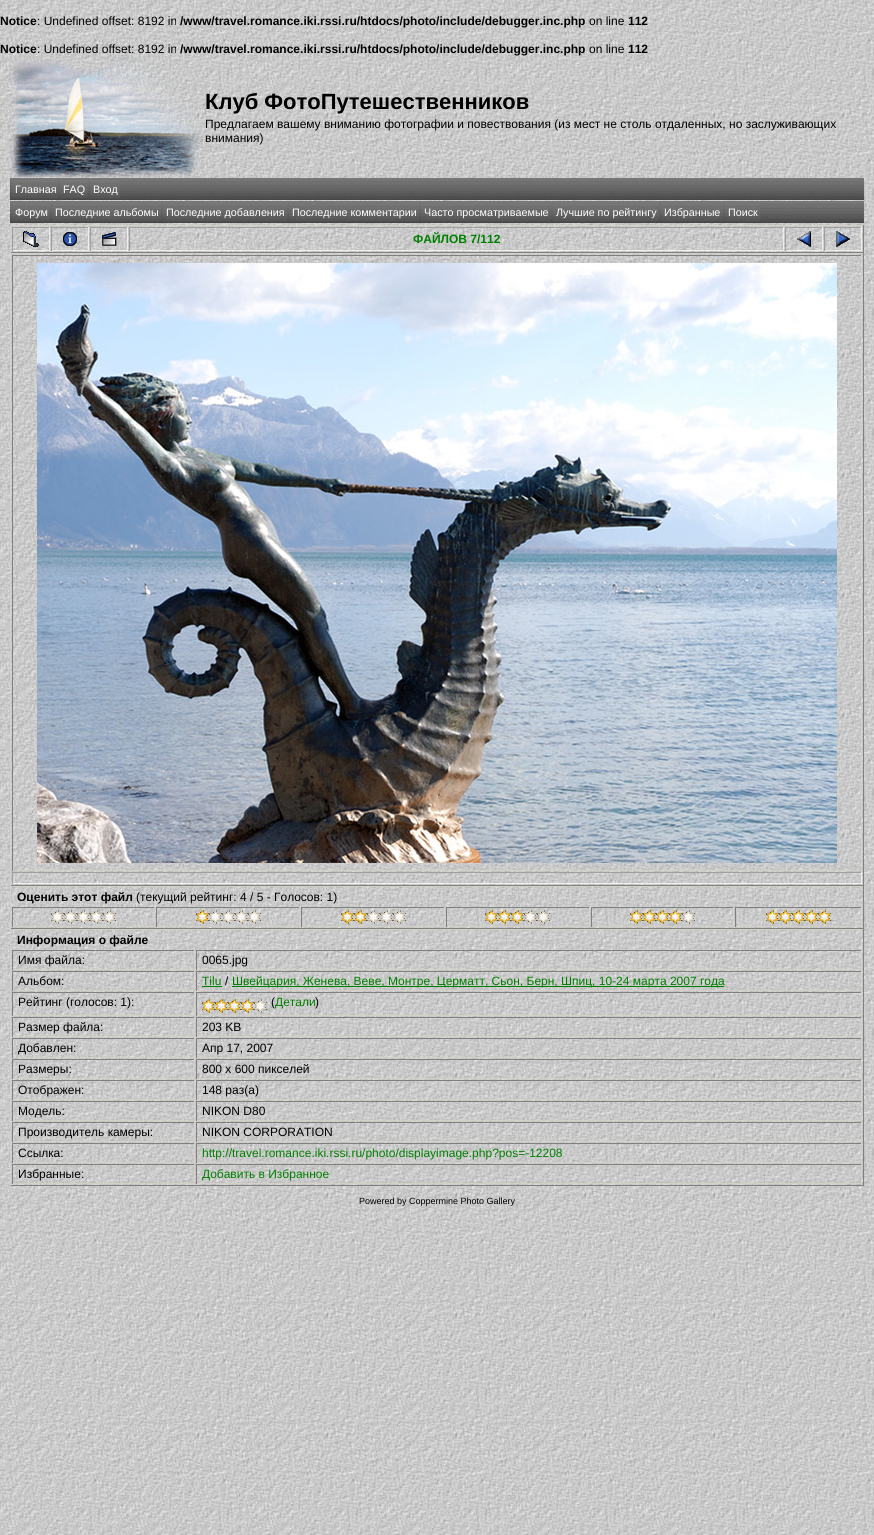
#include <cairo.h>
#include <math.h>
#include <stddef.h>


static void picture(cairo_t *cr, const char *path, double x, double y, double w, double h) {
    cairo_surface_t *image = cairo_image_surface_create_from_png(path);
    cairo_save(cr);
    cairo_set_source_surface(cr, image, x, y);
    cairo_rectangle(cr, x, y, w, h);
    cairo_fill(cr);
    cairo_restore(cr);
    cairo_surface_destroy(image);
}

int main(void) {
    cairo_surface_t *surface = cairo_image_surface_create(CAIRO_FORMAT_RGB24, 874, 1535);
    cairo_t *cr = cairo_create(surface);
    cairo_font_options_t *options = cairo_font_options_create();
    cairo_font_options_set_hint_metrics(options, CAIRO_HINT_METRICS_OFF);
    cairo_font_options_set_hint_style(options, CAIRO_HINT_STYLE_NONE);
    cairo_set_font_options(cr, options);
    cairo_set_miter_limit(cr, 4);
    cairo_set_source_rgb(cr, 1, 1, 1);
    cairo_paint(cr);
    picture(cr, "img1.png", 0, 0, 874, 1535);
    cairo_select_font_face(cr, "Liberation Sans", CAIRO_FONT_SLANT_NORMAL, CAIRO_FONT_WEIGHT_BOLD);
    cairo_set_font_size(cr, 12);
    cairo_set_source_rgb(cr, 0, 0, 0);
    cairo_move_to(cr, 0, 25);
    cairo_show_text(cr, "Notice");
    cairo_select_font_face(cr, "Liberation Sans", CAIRO_FONT_SLANT_NORMAL, CAIRO_FONT_WEIGHT_NORMAL);
    cairo_move_to(cr, 37, 25);
    cairo_show_text(cr, ": Undefined offset: 8192 in");
    cairo_select_font_face(cr, "Liberation Sans", CAIRO_FONT_SLANT_NORMAL, CAIRO_FONT_WEIGHT_BOLD);
    cairo_move_to(cr, 180, 25);
    cairo_show_text(cr, "/www/travel.romance.iki.rssi.ru/htdocs/photo/include/debugger.inc.php");
    cairo_select_font_face(cr, "Liberation Sans", CAIRO_FONT_SLANT_NORMAL, CAIRO_FONT_WEIGHT_NORMAL);
    cairo_move_to(cr, 589, 25);
    cairo_show_text(cr, "on line");
    cairo_select_font_face(cr, "Liberation Sans", CAIRO_FONT_SLANT_NORMAL, CAIRO_FONT_WEIGHT_BOLD);
    cairo_move_to(cr, 628, 25);
    cairo_show_text(cr, "112");
    cairo_move_to(cr, 0, 53);
    cairo_show_text(cr, "Notice");
    cairo_select_font_face(cr, "Liberation Sans", CAIRO_FONT_SLANT_NORMAL, CAIRO_FONT_WEIGHT_NORMAL);
    cairo_move_to(cr, 37, 53);
    cairo_show_text(cr, ": Undefined offset: 8192 in");
    cairo_select_font_face(cr, "Liberation Sans", CAIRO_FONT_SLANT_NORMAL, CAIRO_FONT_WEIGHT_BOLD);
    cairo_move_to(cr, 180, 53);
    cairo_show_text(cr, "/www/travel.romance.iki.rssi.ru/htdocs/photo/include/debugger.inc.php");
    cairo_select_font_face(cr, "Liberation Sans", CAIRO_FONT_SLANT_NORMAL, CAIRO_FONT_WEIGHT_NORMAL);
    cairo_move_to(cr, 589, 53);
    cairo_show_text(cr, "on line");
    cairo_select_font_face(cr, "Liberation Sans", CAIRO_FONT_SLANT_NORMAL, CAIRO_FONT_WEIGHT_BOLD);
    cairo_move_to(cr, 628, 53);
    cairo_show_text(cr, "112");
    picture(cr, "img2.png", 10, 57, 193, 120);
    cairo_set_font_size(cr, 22);
    cairo_move_to(cr, 205, 109);
    cairo_show_text(cr, "Клуб ФотоПутешественников");
    cairo_select_font_face(cr, "Liberation Sans", CAIRO_FONT_SLANT_NORMAL, CAIRO_FONT_WEIGHT_NORMAL);
    cairo_set_font_size(cr, 12);
    cairo_move_to(cr, 205, 128);
    cairo_show_text(cr, "Предлагаем вашему вниманию фотографии и повествования (из мест не столь отдаленных, но заслуживающих");
    cairo_move_to(cr, 205, 142);
    cairo_show_text(cr, "внимания)");
    picture(cr, "img3.png", 10, 178, 854, 22);
    picture(cr, "img4.png", 12, 180, 46, 18);
    cairo_set_font_size(cr, 10.75);
    cairo_set_source_rgb(cr, 1, 1, 1);
    cairo_move_to(cr, 15, 193);
    cairo_show_text(cr, "Главная");
    picture(cr, "img5.png", 60, 180, 28, 18);
    cairo_move_to(cr, 63, 193);
    cairo_show_text(cr, "FAQ");
    picture(cr, "img6.png", 90, 180, 30, 18);
    cairo_move_to(cr, 93, 193);
    cairo_show_text(cr, "Вход");
    picture(cr, "img3.png", 10, 201, 854, 22);
    picture(cr, "img7.png", 12, 203, 38, 18);
    cairo_move_to(cr, 15, 216);
    cairo_show_text(cr, "Форум");
    picture(cr, "img8.png", 52, 203, 109, 18);
    cairo_move_to(cr, 55, 216);
    cairo_show_text(cr, "Последние альбомы");
    picture(cr, "img9.png", 163, 203, 124, 18);
    cairo_move_to(cr, 166, 216);
    cairo_show_text(cr, "Последние добавления");
    picture(cr, "img10.png", 289, 203, 130, 18);
    cairo_move_to(cr, 292, 216);
    cairo_show_text(cr, "Последние комментарии");
    picture(cr, "img11.png", 421, 203, 130, 18);
    cairo_move_to(cr, 424, 216);
    cairo_show_text(cr, "Часто просматриваемые");
    picture(cr, "img12.png", 553, 203, 106, 18);
    cairo_move_to(cr, 556, 216);
    cairo_show_text(cr, "Лучшие по рейтингу");
    picture(cr, "img13.png", 661, 203, 62, 18);
    cairo_move_to(cr, 664, 216);
    cairo_show_text(cr, "Избранные");
    picture(cr, "img14.png", 725, 203, 35, 18);
    cairo_move_to(cr, 728, 216);
    cairo_show_text(cr, "Поиск");
    cairo_set_source_rgb(cr, 0.831, 0.816, 0.784);
    cairo_rectangle(cr, 10, 225, 854, 1);
    cairo_fill(cr);
    cairo_set_source_rgb(cr, 0.502, 0.502, 0.502);
    cairo_rectangle(cr, 863, 225, 1, 28);
    cairo_fill(cr);
    cairo_rectangle(cr, 10, 252, 854, 1);
    cairo_fill(cr);
    cairo_set_source_rgb(cr, 0.831, 0.816, 0.784);
    cairo_rectangle(cr, 10, 225, 1, 28);
    cairo_fill(cr);
    cairo_set_source_rgb(cr, 0.624, 0.624, 0.624);
    cairo_rectangle(cr, 12, 227, 38, 1);
    cairo_fill(cr);
    cairo_set_source_rgb(cr, 0.933, 0.933, 0.933);
    cairo_rectangle(cr, 49, 227, 1, 24);
    cairo_fill(cr);
    cairo_rectangle(cr, 12, 250, 38, 1);
    cairo_fill(cr);
    cairo_set_source_rgb(cr, 0.624, 0.624, 0.624);
    cairo_rectangle(cr, 12, 227, 1, 24);
    cairo_fill(cr);
    picture(cr, "img15.png", 23, 231, 16, 16);
    cairo_rectangle(cr, 51, 227, 38, 1);
    cairo_fill(cr);
    cairo_set_source_rgb(cr, 0.933, 0.933, 0.933);
    cairo_rectangle(cr, 88, 227, 1, 24);
    cairo_fill(cr);
    cairo_rectangle(cr, 51, 250, 38, 1);
    cairo_fill(cr);
    cairo_set_source_rgb(cr, 0.624, 0.624, 0.624);
    cairo_rectangle(cr, 51, 227, 1, 24);
    cairo_fill(cr);
    picture(cr, "img16.png", 63, 232, 14, 14);
    cairo_rectangle(cr, 90, 227, 38, 1);
    cairo_fill(cr);
    cairo_set_source_rgb(cr, 0.933, 0.933, 0.933);
    cairo_rectangle(cr, 127, 227, 1, 24);
    cairo_fill(cr);
    cairo_rectangle(cr, 90, 250, 38, 1);
    cairo_fill(cr);
    cairo_set_source_rgb(cr, 0.624, 0.624, 0.624);
    cairo_rectangle(cr, 90, 227, 1, 24);
    cairo_fill(cr);
    picture(cr, "img17.png", 102, 232, 15, 14);
    cairo_rectangle(cr, 129, 227, 655, 1);
    cairo_fill(cr);
    cairo_set_source_rgb(cr, 0.933, 0.933, 0.933);
    cairo_rectangle(cr, 783, 227, 1, 24);
    cairo_fill(cr);
    cairo_rectangle(cr, 129, 250, 655, 1);
    cairo_fill(cr);
    cairo_set_source_rgb(cr, 0.624, 0.624, 0.624);
    cairo_rectangle(cr, 129, 227, 1, 24);
    cairo_fill(cr);
    cairo_select_font_face(cr, "Liberation Sans", CAIRO_FONT_SLANT_NORMAL, CAIRO_FONT_WEIGHT_BOLD);
    cairo_set_font_size(cr, 12);
    cairo_set_source_rgb(cr, 0, 0.502, 0);
    cairo_move_to(cr, 413, 243);
    cairo_show_text(cr, "ФАЙЛОВ 7/112");
    cairo_set_source_rgb(cr, 0.624, 0.624, 0.624);
    cairo_rectangle(cr, 785, 227, 38, 1);
    cairo_fill(cr);
    cairo_set_source_rgb(cr, 0.933, 0.933, 0.933);
    cairo_rectangle(cr, 822, 227, 1, 24);
    cairo_fill(cr);
    cairo_rectangle(cr, 785, 250, 38, 1);
    cairo_fill(cr);
    cairo_set_source_rgb(cr, 0.624, 0.624, 0.624);
    cairo_rectangle(cr, 785, 227, 1, 24);
    cairo_fill(cr);
    picture(cr, "img18.png", 797, 231, 14, 16);
    cairo_rectangle(cr, 824, 227, 38, 1);
    cairo_fill(cr);
    cairo_set_source_rgb(cr, 0.933, 0.933, 0.933);
    cairo_rectangle(cr, 861, 227, 1, 24);
    cairo_fill(cr);
    cairo_rectangle(cr, 824, 250, 38, 1);
    cairo_fill(cr);
    cairo_set_source_rgb(cr, 0.624, 0.624, 0.624);
    cairo_rectangle(cr, 824, 227, 1, 24);
    cairo_fill(cr);
    picture(cr, "img19.png", 836, 231, 14, 16);
    cairo_set_source_rgb(cr, 0.831, 0.816, 0.784);
    cairo_rectangle(cr, 10, 253, 854, 1);
    cairo_fill(cr);
    cairo_set_source_rgb(cr, 0.502, 0.502, 0.502);
    cairo_rectangle(cr, 863, 253, 1, 633);
    cairo_fill(cr);
    cairo_rectangle(cr, 10, 885, 854, 1);
    cairo_fill(cr);
    cairo_set_source_rgb(cr, 0.831, 0.816, 0.784);
    cairo_rectangle(cr, 10, 253, 1, 633);
    cairo_fill(cr);
    cairo_set_source_rgb(cr, 0.502, 0.502, 0.502);
    cairo_rectangle(cr, 12, 255, 850, 1);
    cairo_fill(cr);
    cairo_set_source_rgb(cr, 0.831, 0.816, 0.784);
    cairo_rectangle(cr, 861, 255, 1, 616);
    cairo_fill(cr);
    cairo_rectangle(cr, 12, 870, 850, 1);
    cairo_fill(cr);
    cairo_set_source_rgb(cr, 0.502, 0.502, 0.502);
    cairo_rectangle(cr, 12, 255, 1, 616);
    cairo_fill(cr);
    picture(cr, "img20.png", 37, 263, 800, 600);
    cairo_set_source_rgb(cr, 0.624, 0.624, 0.624);
    cairo_rectangle(cr, 12, 872, 850, 1);
    cairo_fill(cr);
    cairo_set_source_rgb(cr, 0.933, 0.933, 0.933);
    cairo_rectangle(cr, 861, 872, 1, 12);
    cairo_fill(cr);
    cairo_rectangle(cr, 12, 883, 850, 1);
    cairo_fill(cr);
    cairo_set_source_rgb(cr, 0.624, 0.624, 0.624);
    cairo_rectangle(cr, 12, 872, 1, 12);
    cairo_fill(cr);
    cairo_set_source_rgb(cr, 0.831, 0.816, 0.784);
    cairo_rectangle(cr, 10, 886, 854, 1);
    cairo_fill(cr);
    cairo_set_source_rgb(cr, 0.502, 0.502, 0.502);
    cairo_rectangle(cr, 863, 886, 1, 43);
    cairo_fill(cr);
    cairo_rectangle(cr, 10, 928, 854, 1);
    cairo_fill(cr);
    cairo_set_source_rgb(cr, 0.831, 0.816, 0.784);
    cairo_rectangle(cr, 10, 886, 1, 43);
    cairo_fill(cr);
    cairo_set_source_rgb(cr, 0, 0, 0);
    cairo_move_to(cr, 17, 901);
    cairo_show_text(cr, "Оценить этот файл");
    cairo_select_font_face(cr, "Liberation Sans", CAIRO_FONT_SLANT_NORMAL, CAIRO_FONT_WEIGHT_NORMAL);
    cairo_move_to(cr, 136, 901);
    cairo_show_text(cr, "(текущий рейтинг: 4 / 5 - Голосов: 1)");
    cairo_set_source_rgb(cr, 0.502, 0.502, 0.502);
    cairo_rectangle(cr, 12, 907, 143, 1);
    cairo_fill(cr);
    cairo_set_source_rgb(cr, 0.831, 0.816, 0.784);
    cairo_rectangle(cr, 154, 907, 1, 20);
    cairo_fill(cr);
    cairo_rectangle(cr, 12, 926, 143, 1);
    cairo_fill(cr);
    cairo_set_source_rgb(cr, 0.502, 0.502, 0.502);
    cairo_rectangle(cr, 12, 907, 1, 20);
    cairo_fill(cr);
    picture(cr, "img21.png", 51, 910, 65, 14);
    cairo_rectangle(cr, 156, 907, 144, 1);
    cairo_fill(cr);
    cairo_set_source_rgb(cr, 0.831, 0.816, 0.784);
    cairo_rectangle(cr, 299, 907, 1, 20);
    cairo_fill(cr);
    cairo_rectangle(cr, 156, 926, 144, 1);
    cairo_fill(cr);
    cairo_set_source_rgb(cr, 0.502, 0.502, 0.502);
    cairo_rectangle(cr, 156, 907, 1, 20);
    cairo_fill(cr);
    picture(cr, "img22.png", 196, 910, 65, 14);
    cairo_rectangle(cr, 301, 907, 144, 1);
    cairo_fill(cr);
    cairo_set_source_rgb(cr, 0.831, 0.816, 0.784);
    cairo_rectangle(cr, 444, 907, 1, 20);
    cairo_fill(cr);
    cairo_rectangle(cr, 301, 926, 144, 1);
    cairo_fill(cr);
    cairo_set_source_rgb(cr, 0.502, 0.502, 0.502);
    cairo_rectangle(cr, 301, 907, 1, 20);
    cairo_fill(cr);
    picture(cr, "img23.png", 341, 910, 65, 14);
    cairo_rectangle(cr, 446, 907, 144, 1);
    cairo_fill(cr);
    cairo_set_source_rgb(cr, 0.831, 0.816, 0.784);
    cairo_rectangle(cr, 589, 907, 1, 20);
    cairo_fill(cr);
    cairo_rectangle(cr, 446, 926, 144, 1);
    cairo_fill(cr);
    cairo_set_source_rgb(cr, 0.502, 0.502, 0.502);
    cairo_rectangle(cr, 446, 907, 1, 20);
    cairo_fill(cr);
    picture(cr, "img24.png", 485, 910, 65, 14);
    cairo_rectangle(cr, 591, 907, 143, 1);
    cairo_fill(cr);
    cairo_set_source_rgb(cr, 0.831, 0.816, 0.784);
    cairo_rectangle(cr, 733, 907, 1, 20);
    cairo_fill(cr);
    cairo_rectangle(cr, 591, 926, 143, 1);
    cairo_fill(cr);
    cairo_set_source_rgb(cr, 0.502, 0.502, 0.502);
    cairo_rectangle(cr, 591, 907, 1, 20);
    cairo_fill(cr);
    picture(cr, "img25.png", 630, 910, 65, 14);
    cairo_rectangle(cr, 735, 907, 127, 1);
    cairo_fill(cr);
    cairo_set_source_rgb(cr, 0.831, 0.816, 0.784);
    cairo_rectangle(cr, 861, 907, 1, 20);
    cairo_fill(cr);
    cairo_rectangle(cr, 735, 926, 127, 1);
    cairo_fill(cr);
    cairo_set_source_rgb(cr, 0.502, 0.502, 0.502);
    cairo_rectangle(cr, 735, 907, 1, 20);
    cairo_fill(cr);
    picture(cr, "img26.png", 766, 910, 65, 14);
    cairo_set_source_rgb(cr, 0.831, 0.816, 0.784);
    cairo_rectangle(cr, 10, 929, 854, 1);
    cairo_fill(cr);
    cairo_set_source_rgb(cr, 0.502, 0.502, 0.502);
    cairo_rectangle(cr, 863, 929, 1, 257);
    cairo_fill(cr);
    cairo_rectangle(cr, 10, 1185, 854, 1);
    cairo_fill(cr);
    cairo_set_source_rgb(cr, 0.831, 0.816, 0.784);
    cairo_rectangle(cr, 10, 929, 1, 257);
    cairo_fill(cr);
    cairo_select_font_face(cr, "Liberation Sans", CAIRO_FONT_SLANT_NORMAL, CAIRO_FONT_WEIGHT_BOLD);
    cairo_set_source_rgb(cr, 0, 0, 0);
    cairo_move_to(cr, 17, 944);
    cairo_show_text(cr, "Информация о файле");
    cairo_set_source_rgb(cr, 0.502, 0.502, 0.502);
    cairo_rectangle(cr, 12, 950, 183, 1);
    cairo_fill(cr);
    cairo_set_source_rgb(cr, 0.831, 0.816, 0.784);
    cairo_rectangle(cr, 194, 950, 1, 20);
    cairo_fill(cr);
    cairo_rectangle(cr, 12, 969, 183, 1);
    cairo_fill(cr);
    cairo_set_source_rgb(cr, 0.502, 0.502, 0.502);
    cairo_rectangle(cr, 12, 950, 1, 20);
    cairo_fill(cr);
    cairo_select_font_face(cr, "Liberation Sans", CAIRO_FONT_SLANT_NORMAL, CAIRO_FONT_WEIGHT_NORMAL);
    cairo_set_source_rgb(cr, 0, 0, 0);
    cairo_move_to(cr, 18, 964);
    cairo_show_text(cr, "Имя файла:");
    cairo_set_source_rgb(cr, 0.502, 0.502, 0.502);
    cairo_rectangle(cr, 196, 950, 666, 1);
    cairo_fill(cr);
    cairo_set_source_rgb(cr, 0.831, 0.816, 0.784);
    cairo_rectangle(cr, 861, 950, 1, 20);
    cairo_fill(cr);
    cairo_rectangle(cr, 196, 969, 666, 1);
    cairo_fill(cr);
    cairo_set_source_rgb(cr, 0.502, 0.502, 0.502);
    cairo_rectangle(cr, 196, 950, 1, 20);
    cairo_fill(cr);
    cairo_set_source_rgb(cr, 0, 0, 0);
    cairo_move_to(cr, 202, 964);
    cairo_show_text(cr, "0065.jpg");
    cairo_set_source_rgb(cr, 0.502, 0.502, 0.502);
    cairo_rectangle(cr, 12, 971, 183, 1);
    cairo_fill(cr);
    cairo_set_source_rgb(cr, 0.831, 0.816, 0.784);
    cairo_rectangle(cr, 194, 971, 1, 20);
    cairo_fill(cr);
    cairo_rectangle(cr, 12, 990, 183, 1);
    cairo_fill(cr);
    cairo_set_source_rgb(cr, 0.502, 0.502, 0.502);
    cairo_rectangle(cr, 12, 971, 1, 20);
    cairo_fill(cr);
    cairo_set_source_rgb(cr, 0, 0, 0);
    cairo_move_to(cr, 18, 985);
    cairo_show_text(cr, "Альбом:");
    cairo_set_source_rgb(cr, 0.502, 0.502, 0.502);
    cairo_rectangle(cr, 196, 971, 666, 1);
    cairo_fill(cr);
    cairo_set_source_rgb(cr, 0.831, 0.816, 0.784);
    cairo_rectangle(cr, 861, 971, 1, 20);
    cairo_fill(cr);
    cairo_rectangle(cr, 196, 990, 666, 1);
    cairo_fill(cr);
    cairo_set_source_rgb(cr, 0.502, 0.502, 0.502);
    cairo_rectangle(cr, 196, 971, 1, 20);
    cairo_fill(cr);
    cairo_set_source_rgb(cr, 0, 0.502, 0);
    cairo_move_to(cr, 202, 985);
    cairo_show_text(cr, "Tilu");
    cairo_rectangle(cr, 202, 986, 20, 1);
    cairo_fill(cr);
    cairo_set_source_rgb(cr, 0, 0, 0);
    cairo_move_to(cr, 225, 985);
    cairo_show_text(cr, "/");
    cairo_set_source_rgb(cr, 0, 0.502, 0);
    cairo_rectangle(cr, 232, 986, 492, 1);
    cairo_fill(cr);
    cairo_move_to(cr, 232, 985);
    cairo_show_text(cr, "Швейцария, Женева, Веве, Монтре, Церматт, Сьон, Берн, Шпиц, 10-24 марта 2007 года");
    cairo_set_source_rgb(cr, 0.502, 0.502, 0.502);
    cairo_rectangle(cr, 12, 992, 183, 1);
    cairo_fill(cr);
    cairo_set_source_rgb(cr, 0.831, 0.816, 0.784);
    cairo_rectangle(cr, 194, 992, 1, 24);
    cairo_fill(cr);
    cairo_rectangle(cr, 12, 1015, 183, 1);
    cairo_fill(cr);
    cairo_set_source_rgb(cr, 0.502, 0.502, 0.502);
    cairo_rectangle(cr, 12, 992, 1, 24);
    cairo_fill(cr);
    cairo_set_source_rgb(cr, 0, 0, 0);
    cairo_move_to(cr, 18, 1006);
    cairo_show_text(cr, "Рейтинг (голосов: 1):");
    cairo_set_source_rgb(cr, 0.502, 0.502, 0.502);
    cairo_rectangle(cr, 196, 992, 666, 1);
    cairo_fill(cr);
    cairo_set_source_rgb(cr, 0.831, 0.816, 0.784);
    cairo_rectangle(cr, 861, 992, 1, 24);
    cairo_fill(cr);
    cairo_rectangle(cr, 196, 1015, 666, 1);
    cairo_fill(cr);
    cairo_set_source_rgb(cr, 0.502, 0.502, 0.502);
    cairo_rectangle(cr, 196, 992, 1, 24);
    cairo_fill(cr);
    picture(cr, "img27.png", 202, 999, 65, 14);
    cairo_set_source_rgb(cr, 0, 0, 0);
    cairo_move_to(cr, 271, 1006);
    cairo_show_text(cr, "(");
    cairo_set_source_rgb(cr, 0, 0.502, 0);
    cairo_move_to(cr, 275, 1006);
    cairo_show_text(cr, "Детали");
    cairo_set_source_rgb(cr, 0, 0, 0);
    cairo_move_to(cr, 315, 1006);
    cairo_show_text(cr, ")");
    cairo_set_source_rgb(cr, 0.502, 0.502, 0.502);
    cairo_rectangle(cr, 12, 1017, 183, 1);
    cairo_fill(cr);
    cairo_set_source_rgb(cr, 0.831, 0.816, 0.784);
    cairo_rectangle(cr, 194, 1017, 1, 20);
    cairo_fill(cr);
    cairo_rectangle(cr, 12, 1036, 183, 1);
    cairo_fill(cr);
    cairo_set_source_rgb(cr, 0.502, 0.502, 0.502);
    cairo_rectangle(cr, 12, 1017, 1, 20);
    cairo_fill(cr);
    cairo_set_source_rgb(cr, 0, 0, 0);
    cairo_move_to(cr, 18, 1031);
    cairo_show_text(cr, "Размер файла:");
    cairo_set_source_rgb(cr, 0.502, 0.502, 0.502);
    cairo_rectangle(cr, 196, 1017, 666, 1);
    cairo_fill(cr);
    cairo_set_source_rgb(cr, 0.831, 0.816, 0.784);
    cairo_rectangle(cr, 861, 1017, 1, 20);
    cairo_fill(cr);
    cairo_rectangle(cr, 196, 1036, 666, 1);
    cairo_fill(cr);
    cairo_set_source_rgb(cr, 0.502, 0.502, 0.502);
    cairo_rectangle(cr, 196, 1017, 1, 20);
    cairo_fill(cr);
    cairo_set_source_rgb(cr, 0, 0, 0);
    cairo_move_to(cr, 202, 1031);
    cairo_show_text(cr, "203 KB");
    cairo_set_source_rgb(cr, 0.502, 0.502, 0.502);
    cairo_rectangle(cr, 12, 1038, 183, 1);
    cairo_fill(cr);
    cairo_set_source_rgb(cr, 0.831, 0.816, 0.784);
    cairo_rectangle(cr, 194, 1038, 1, 20);
    cairo_fill(cr);
    cairo_rectangle(cr, 12, 1057, 183, 1);
    cairo_fill(cr);
    cairo_set_source_rgb(cr, 0.502, 0.502, 0.502);
    cairo_rectangle(cr, 12, 1038, 1, 20);
    cairo_fill(cr);
    cairo_set_source_rgb(cr, 0, 0, 0);
    cairo_move_to(cr, 18, 1052);
    cairo_show_text(cr, "Добавлен:");
    cairo_set_source_rgb(cr, 0.502, 0.502, 0.502);
    cairo_rectangle(cr, 196, 1038, 666, 1);
    cairo_fill(cr);
    cairo_set_source_rgb(cr, 0.831, 0.816, 0.784);
    cairo_rectangle(cr, 861, 1038, 1, 20);
    cairo_fill(cr);
    cairo_rectangle(cr, 196, 1057, 666, 1);
    cairo_fill(cr);
    cairo_set_source_rgb(cr, 0.502, 0.502, 0.502);
    cairo_rectangle(cr, 196, 1038, 1, 20);
    cairo_fill(cr);
    cairo_set_source_rgb(cr, 0, 0, 0);
    cairo_move_to(cr, 202, 1052);
    cairo_show_text(cr, "Апр 17, 2007");
    cairo_set_source_rgb(cr, 0.502, 0.502, 0.502);
    cairo_rectangle(cr, 12, 1059, 183, 1);
    cairo_fill(cr);
    cairo_set_source_rgb(cr, 0.831, 0.816, 0.784);
    cairo_rectangle(cr, 194, 1059, 1, 20);
    cairo_fill(cr);
    cairo_rectangle(cr, 12, 1078, 183, 1);
    cairo_fill(cr);
    cairo_set_source_rgb(cr, 0.502, 0.502, 0.502);
    cairo_rectangle(cr, 12, 1059, 1, 20);
    cairo_fill(cr);
    cairo_set_source_rgb(cr, 0, 0, 0);
    cairo_move_to(cr, 18, 1073);
    cairo_show_text(cr, "Размеры:");
    cairo_set_source_rgb(cr, 0.502, 0.502, 0.502);
    cairo_rectangle(cr, 196, 1059, 666, 1);
    cairo_fill(cr);
    cairo_set_source_rgb(cr, 0.831, 0.816, 0.784);
    cairo_rectangle(cr, 861, 1059, 1, 20);
    cairo_fill(cr);
    cairo_rectangle(cr, 196, 1078, 666, 1);
    cairo_fill(cr);
    cairo_set_source_rgb(cr, 0.502, 0.502, 0.502);
    cairo_rectangle(cr, 196, 1059, 1, 20);
    cairo_fill(cr);
    cairo_set_source_rgb(cr, 0, 0, 0);
    cairo_move_to(cr, 202, 1073);
    cairo_show_text(cr, "800 x 600 пикселей");
    cairo_set_source_rgb(cr, 0.502, 0.502, 0.502);
    cairo_rectangle(cr, 12, 1080, 183, 1);
    cairo_fill(cr);
    cairo_set_source_rgb(cr, 0.831, 0.816, 0.784);
    cairo_rectangle(cr, 194, 1080, 1, 20);
    cairo_fill(cr);
    cairo_rectangle(cr, 12, 1099, 183, 1);
    cairo_fill(cr);
    cairo_set_source_rgb(cr, 0.502, 0.502, 0.502);
    cairo_rectangle(cr, 12, 1080, 1, 20);
    cairo_fill(cr);
    cairo_set_source_rgb(cr, 0, 0, 0);
    cairo_move_to(cr, 18, 1094);
    cairo_show_text(cr, "Отображен:");
    cairo_set_source_rgb(cr, 0.502, 0.502, 0.502);
    cairo_rectangle(cr, 196, 1080, 666, 1);
    cairo_fill(cr);
    cairo_set_source_rgb(cr, 0.831, 0.816, 0.784);
    cairo_rectangle(cr, 861, 1080, 1, 20);
    cairo_fill(cr);
    cairo_rectangle(cr, 196, 1099, 666, 1);
    cairo_fill(cr);
    cairo_set_source_rgb(cr, 0.502, 0.502, 0.502);
    cairo_rectangle(cr, 196, 1080, 1, 20);
    cairo_fill(cr);
    cairo_set_source_rgb(cr, 0, 0, 0);
    cairo_move_to(cr, 202, 1094);
    cairo_show_text(cr, "148 раз(а)");
    cairo_set_source_rgb(cr, 0.502, 0.502, 0.502);
    cairo_rectangle(cr, 12, 1101, 183, 1);
    cairo_fill(cr);
    cairo_set_source_rgb(cr, 0.831, 0.816, 0.784);
    cairo_rectangle(cr, 194, 1101, 1, 20);
    cairo_fill(cr);
    cairo_rectangle(cr, 12, 1120, 183, 1);
    cairo_fill(cr);
    cairo_set_source_rgb(cr, 0.502, 0.502, 0.502);
    cairo_rectangle(cr, 12, 1101, 1, 20);
    cairo_fill(cr);
    cairo_set_source_rgb(cr, 0, 0, 0);
    cairo_move_to(cr, 18, 1115);
    cairo_show_text(cr, "Модель:");
    cairo_set_source_rgb(cr, 0.502, 0.502, 0.502);
    cairo_rectangle(cr, 196, 1101, 666, 1);
    cairo_fill(cr);
    cairo_set_source_rgb(cr, 0.831, 0.816, 0.784);
    cairo_rectangle(cr, 861, 1101, 1, 20);
    cairo_fill(cr);
    cairo_rectangle(cr, 196, 1120, 666, 1);
    cairo_fill(cr);
    cairo_set_source_rgb(cr, 0.502, 0.502, 0.502);
    cairo_rectangle(cr, 196, 1101, 1, 20);
    cairo_fill(cr);
    cairo_set_source_rgb(cr, 0, 0, 0);
    cairo_move_to(cr, 202, 1115);
    cairo_show_text(cr, "NIKON D80");
    cairo_set_source_rgb(cr, 0.502, 0.502, 0.502);
    cairo_rectangle(cr, 12, 1122, 183, 1);
    cairo_fill(cr);
    cairo_set_source_rgb(cr, 0.831, 0.816, 0.784);
    cairo_rectangle(cr, 194, 1122, 1, 20);
    cairo_fill(cr);
    cairo_rectangle(cr, 12, 1141, 183, 1);
    cairo_fill(cr);
    cairo_set_source_rgb(cr, 0.502, 0.502, 0.502);
    cairo_rectangle(cr, 12, 1122, 1, 20);
    cairo_fill(cr);
    cairo_set_source_rgb(cr, 0, 0, 0);
    cairo_move_to(cr, 18, 1136);
    cairo_show_text(cr, "Производитель камеры:");
    cairo_set_source_rgb(cr, 0.502, 0.502, 0.502);
    cairo_rectangle(cr, 196, 1122, 666, 1);
    cairo_fill(cr);
    cairo_set_source_rgb(cr, 0.831, 0.816, 0.784);
    cairo_rectangle(cr, 861, 1122, 1, 20);
    cairo_fill(cr);
    cairo_rectangle(cr, 196, 1141, 666, 1);
    cairo_fill(cr);
    cairo_set_source_rgb(cr, 0.502, 0.502, 0.502);
    cairo_rectangle(cr, 196, 1122, 1, 20);
    cairo_fill(cr);
    cairo_set_source_rgb(cr, 0, 0, 0);
    cairo_move_to(cr, 202, 1136);
    cairo_show_text(cr, "NIKON CORPORATION");
    cairo_set_source_rgb(cr, 0.502, 0.502, 0.502);
    cairo_rectangle(cr, 12, 1143, 183, 1);
    cairo_fill(cr);
    cairo_set_source_rgb(cr, 0.831, 0.816, 0.784);
    cairo_rectangle(cr, 194, 1143, 1, 20);
    cairo_fill(cr);
    cairo_rectangle(cr, 12, 1162, 183, 1);
    cairo_fill(cr);
    cairo_set_source_rgb(cr, 0.502, 0.502, 0.502);
    cairo_rectangle(cr, 12, 1143, 1, 20);
    cairo_fill(cr);
    cairo_set_source_rgb(cr, 0, 0, 0);
    cairo_move_to(cr, 18, 1157);
    cairo_show_text(cr, "Ссылка:");
    cairo_set_source_rgb(cr, 0.502, 0.502, 0.502);
    cairo_rectangle(cr, 196, 1143, 666, 1);
    cairo_fill(cr);
    cairo_set_source_rgb(cr, 0.831, 0.816, 0.784);
    cairo_rectangle(cr, 861, 1143, 1, 20);
    cairo_fill(cr);
    cairo_rectangle(cr, 196, 1162, 666, 1);
    cairo_fill(cr);
    cairo_set_source_rgb(cr, 0.502, 0.502, 0.502);
    cairo_rectangle(cr, 196, 1143, 1, 20);
    cairo_fill(cr);
    cairo_set_source_rgb(cr, 0, 0.502, 0);
    cairo_move_to(cr, 202, 1157);
    cairo_show_text(cr, "http://travel.romance.iki.rssi.ru/photo/displayimage.php?pos=-12208");
    cairo_set_source_rgb(cr, 0.502, 0.502, 0.502);
    cairo_rectangle(cr, 12, 1164, 183, 1);
    cairo_fill(cr);
    cairo_set_source_rgb(cr, 0.831, 0.816, 0.784);
    cairo_rectangle(cr, 194, 1164, 1, 20);
    cairo_fill(cr);
    cairo_rectangle(cr, 12, 1183, 183, 1);
    cairo_fill(cr);
    cairo_set_source_rgb(cr, 0.502, 0.502, 0.502);
    cairo_rectangle(cr, 12, 1164, 1, 20);
    cairo_fill(cr);
    cairo_set_source_rgb(cr, 0, 0, 0);
    cairo_move_to(cr, 18, 1178);
    cairo_show_text(cr, "Избранные:");
    cairo_set_source_rgb(cr, 0.502, 0.502, 0.502);
    cairo_rectangle(cr, 196, 1164, 666, 1);
    cairo_fill(cr);
    cairo_set_source_rgb(cr, 0.831, 0.816, 0.784);
    cairo_rectangle(cr, 861, 1164, 1, 20);
    cairo_fill(cr);
    cairo_rectangle(cr, 196, 1183, 666, 1);
    cairo_fill(cr);
    cairo_set_source_rgb(cr, 0.502, 0.502, 0.502);
    cairo_rectangle(cr, 196, 1164, 1, 20);
    cairo_fill(cr);
    cairo_set_source_rgb(cr, 0, 0.502, 0);
    cairo_move_to(cr, 202, 1178);
    cairo_show_text(cr, "Добавить в Избранное");
    cairo_set_font_size(cr, 9);
    cairo_set_source_rgb(cr, 0, 0, 0);
    cairo_move_to(cr, 359, 1204);
    cairo_show_text(cr, "Powered by Coppermine Photo Gallery");
    cairo_surface_write_to_png(surface, "page.png");
    cairo_font_options_destroy(options);
    cairo_destroy(cr);
    cairo_surface_destroy(surface);
    return 0;
}
